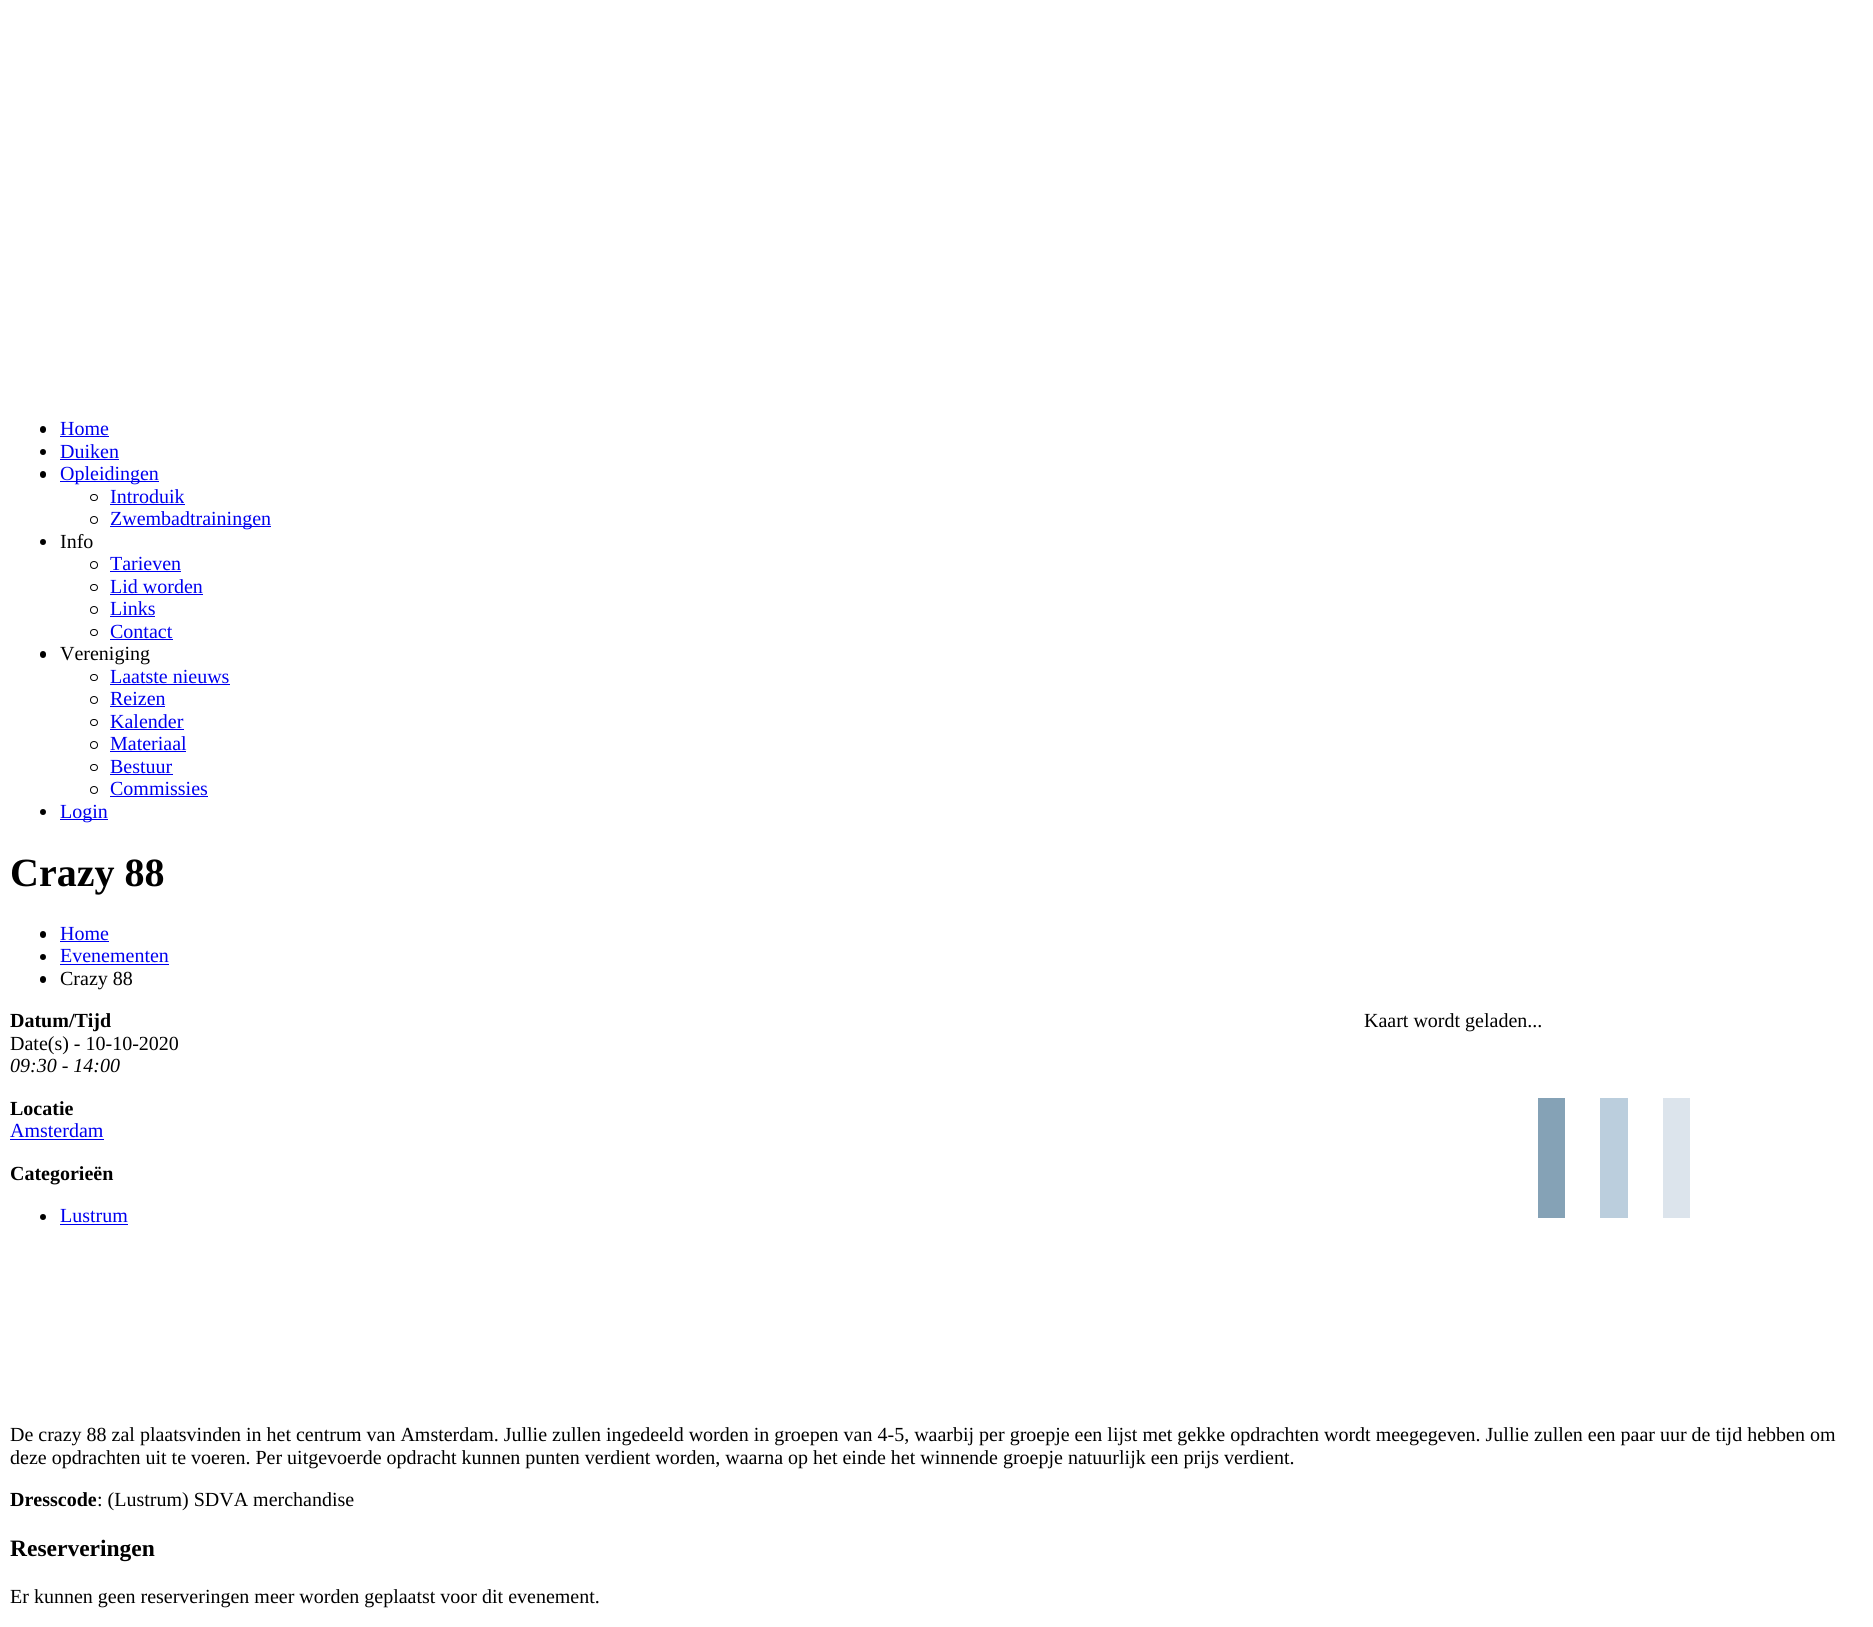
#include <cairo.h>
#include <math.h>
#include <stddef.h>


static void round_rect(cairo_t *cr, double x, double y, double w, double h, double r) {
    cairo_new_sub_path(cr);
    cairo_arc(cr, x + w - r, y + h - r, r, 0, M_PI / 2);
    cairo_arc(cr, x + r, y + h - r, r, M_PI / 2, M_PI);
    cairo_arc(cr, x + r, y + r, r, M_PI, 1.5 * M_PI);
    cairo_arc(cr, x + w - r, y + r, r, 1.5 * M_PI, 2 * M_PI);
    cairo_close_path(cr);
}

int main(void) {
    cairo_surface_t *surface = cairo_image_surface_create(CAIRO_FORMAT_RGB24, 1873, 1627);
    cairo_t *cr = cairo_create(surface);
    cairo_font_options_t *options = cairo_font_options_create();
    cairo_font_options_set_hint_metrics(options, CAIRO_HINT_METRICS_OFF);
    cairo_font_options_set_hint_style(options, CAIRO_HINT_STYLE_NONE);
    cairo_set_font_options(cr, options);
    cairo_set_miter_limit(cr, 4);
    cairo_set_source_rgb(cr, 1, 1, 1);
    cairo_paint(cr);
    cairo_set_source_rgb(cr, 0, 0, 0);
    round_rect(cr, 40, 426, 6, 7, 3);
    cairo_fill(cr);
    cairo_select_font_face(cr, "Liberation Serif", CAIRO_FONT_SLANT_NORMAL, CAIRO_FONT_WEIGHT_NORMAL);
    cairo_set_font_size(cr, 20);
    cairo_set_source_rgb(cr, 0, 0, 0.933);
    cairo_move_to(cr, 60, 435);
    cairo_show_text(cr, "Home");
    cairo_rectangle(cr, 60, 436, 49, 1);
    cairo_fill(cr);
    cairo_set_source_rgb(cr, 0, 0, 0);
    cairo_arc(cr, 43, 452, 3, 0, 2 * M_PI);
    cairo_fill(cr);
    cairo_set_source_rgb(cr, 0, 0, 0.933);
    cairo_move_to(cr, 60, 458);
    cairo_show_text(cr, "Duiken");
    cairo_rectangle(cr, 60, 459, 59, 1);
    cairo_fill(cr);
    cairo_set_source_rgb(cr, 0, 0, 0);
    round_rect(cr, 40, 471, 6, 7, 3);
    cairo_fill(cr);
    cairo_set_source_rgb(cr, 0, 0, 0.933);
    cairo_rectangle(cr, 60, 481, 99, 1);
    cairo_fill(cr);
    cairo_move_to(cr, 60, 480);
    cairo_show_text(cr, "Opleidingen");
    round_rect(cr, 90.5, 494.5, 7, 6, 3);
    cairo_set_source_rgb(cr, 0, 0, 0);
    cairo_set_line_width(cr, 1);
    cairo_stroke(cr);
    cairo_set_source_rgb(cr, 0, 0, 0.933);
    cairo_move_to(cr, 110, 503);
    cairo_show_text(cr, "Introduik");
    cairo_rectangle(cr, 110, 504, 75, 1);
    cairo_fill(cr);
    cairo_arc(cr, 94, 520, 3.5, 0, 2 * M_PI);
    cairo_set_source_rgb(cr, 0, 0, 0);
    cairo_stroke(cr);
    cairo_set_source_rgb(cr, 0, 0, 0.933);
    cairo_rectangle(cr, 110, 526, 161, 1);
    cairo_fill(cr);
    cairo_move_to(cr, 110, 525);
    cairo_show_text(cr, "Zwembadtrainingen");
    cairo_set_source_rgb(cr, 0, 0, 0);
    cairo_new_path(cr);
    cairo_arc(cr, 43, 542, 3, 0, 2 * M_PI);
    cairo_fill(cr);
    cairo_move_to(cr, 60, 548);
    cairo_show_text(cr, "Info");
    cairo_new_path(cr);
    cairo_arc(cr, 94, 565, 3.5, 0, 2 * M_PI);
    cairo_stroke(cr);
    cairo_set_source_rgb(cr, 0, 0, 0.933);
    cairo_move_to(cr, 110, 570);
    cairo_show_text(cr, "Tarieven");
    cairo_rectangle(cr, 110, 571, 71, 1);
    cairo_fill(cr);
    round_rect(cr, 90.5, 584.5, 7, 6, 3);
    cairo_set_source_rgb(cr, 0, 0, 0);
    cairo_stroke(cr);
    cairo_set_source_rgb(cr, 0, 0, 0.933);
    cairo_move_to(cr, 110, 593);
    cairo_show_text(cr, "Lid worden");
    cairo_rectangle(cr, 110, 594, 93, 1);
    cairo_fill(cr);
    cairo_arc(cr, 94, 610, 3.5, 0, 2 * M_PI);
    cairo_set_source_rgb(cr, 0, 0, 0);
    cairo_stroke(cr);
    cairo_set_source_rgb(cr, 0, 0, 0.933);
    cairo_move_to(cr, 110, 615);
    cairo_show_text(cr, "Links");
    cairo_rectangle(cr, 110, 616, 45, 1);
    cairo_fill(cr);
    round_rect(cr, 90.5, 629.5, 7, 6, 3);
    cairo_set_source_rgb(cr, 0, 0, 0);
    cairo_stroke(cr);
    cairo_set_source_rgb(cr, 0, 0, 0.933);
    cairo_move_to(cr, 110, 638);
    cairo_show_text(cr, "Contact");
    cairo_rectangle(cr, 110, 639, 63, 1);
    cairo_fill(cr);
    cairo_set_source_rgb(cr, 0, 0, 0);
    round_rect(cr, 40, 651, 6, 7, 3);
    cairo_fill(cr);
    cairo_move_to(cr, 60, 660);
    cairo_show_text(cr, "Vereniging");
    round_rect(cr, 90.5, 674.5, 7, 6, 3);
    cairo_stroke(cr);
    cairo_set_source_rgb(cr, 0, 0, 0.933);
    cairo_move_to(cr, 110, 683);
    cairo_show_text(cr, "Laatste nieuws");
    cairo_rectangle(cr, 110, 684, 120, 1);
    cairo_fill(cr);
    cairo_arc(cr, 94, 700, 3.5, 0, 2 * M_PI);
    cairo_set_source_rgb(cr, 0, 0, 0);
    cairo_stroke(cr);
    cairo_set_source_rgb(cr, 0, 0, 0.933);
    cairo_move_to(cr, 110, 705);
    cairo_show_text(cr, "Reizen");
    cairo_rectangle(cr, 110, 706, 55, 1);
    cairo_fill(cr);
    round_rect(cr, 90.5, 719.5, 7, 6, 3);
    cairo_set_source_rgb(cr, 0, 0, 0);
    cairo_stroke(cr);
    cairo_set_source_rgb(cr, 0, 0, 0.933);
    cairo_move_to(cr, 110, 728);
    cairo_show_text(cr, "Kalender");
    cairo_rectangle(cr, 110, 729, 74, 1);
    cairo_fill(cr);
    cairo_arc(cr, 94, 745, 3.5, 0, 2 * M_PI);
    cairo_set_source_rgb(cr, 0, 0, 0);
    cairo_stroke(cr);
    cairo_set_source_rgb(cr, 0, 0, 0.933);
    cairo_move_to(cr, 110, 750);
    cairo_show_text(cr, "Materiaal");
    cairo_rectangle(cr, 110, 751, 76, 1);
    cairo_fill(cr);
    round_rect(cr, 90.5, 764.5, 7, 6, 3);
    cairo_set_source_rgb(cr, 0, 0, 0);
    cairo_stroke(cr);
    cairo_set_source_rgb(cr, 0, 0, 0.933);
    cairo_move_to(cr, 110, 773);
    cairo_show_text(cr, "Bestuur");
    cairo_rectangle(cr, 110, 774, 63, 1);
    cairo_fill(cr);
    cairo_arc(cr, 94, 790, 3.5, 0, 2 * M_PI);
    cairo_set_source_rgb(cr, 0, 0, 0);
    cairo_stroke(cr);
    cairo_set_source_rgb(cr, 0, 0, 0.933);
    cairo_move_to(cr, 110, 795);
    cairo_show_text(cr, "Commissies");
    cairo_rectangle(cr, 110, 796, 98, 1);
    cairo_fill(cr);
    cairo_set_source_rgb(cr, 0, 0, 0);
    cairo_arc(cr, 43, 812, 3, 0, 2 * M_PI);
    cairo_fill(cr);
    cairo_set_source_rgb(cr, 0, 0, 0.933);
    cairo_rectangle(cr, 60, 819, 48, 1);
    cairo_fill(cr);
    cairo_move_to(cr, 60, 818);
    cairo_show_text(cr, "Login");
    cairo_select_font_face(cr, "Liberation Serif", CAIRO_FONT_SLANT_NORMAL, CAIRO_FONT_WEIGHT_BOLD);
    cairo_set_font_size(cr, 40);
    cairo_set_source_rgb(cr, 0, 0, 0);
    cairo_move_to(cr, 10, 886);
    cairo_show_text(cr, "Crazy 88");
    round_rect(cr, 40, 931, 6, 7, 3);
    cairo_fill(cr);
    cairo_select_font_face(cr, "Liberation Serif", CAIRO_FONT_SLANT_NORMAL, CAIRO_FONT_WEIGHT_NORMAL);
    cairo_set_font_size(cr, 20);
    cairo_set_source_rgb(cr, 0, 0, 0.933);
    cairo_move_to(cr, 60, 940);
    cairo_show_text(cr, "Home");
    cairo_rectangle(cr, 60, 941, 49, 1);
    cairo_fill(cr);
    cairo_set_source_rgb(cr, 0, 0, 0);
    cairo_arc(cr, 43, 957, 3, 0, 2 * M_PI);
    cairo_fill(cr);
    cairo_set_source_rgb(cr, 0, 0, 0.933);
    cairo_move_to(cr, 60, 962);
    cairo_show_text(cr, "Evenementen");
    cairo_rectangle(cr, 60, 964, 109, 1);
    cairo_fill(cr);
    cairo_set_source_rgb(cr, 0, 0, 0);
    round_rect(cr, 40, 976, 6, 7, 3);
    cairo_fill(cr);
    cairo_move_to(cr, 60, 985);
    cairo_show_text(cr, "Crazy 88");
    cairo_select_font_face(cr, "Liberation Serif", CAIRO_FONT_SLANT_NORMAL, CAIRO_FONT_WEIGHT_BOLD);
    cairo_move_to(cr, 10, 1027);
    cairo_show_text(cr, "Datum/Tijd");
    cairo_select_font_face(cr, "Liberation Serif", CAIRO_FONT_SLANT_NORMAL, CAIRO_FONT_WEIGHT_NORMAL);
    cairo_move_to(cr, 10, 1050);
    cairo_show_text(cr, "Date(s) - 10-10-2020");
    cairo_select_font_face(cr, "Liberation Serif", CAIRO_FONT_SLANT_ITALIC, CAIRO_FONT_WEIGHT_NORMAL);
    cairo_move_to(cr, 10, 1072);
    cairo_show_text(cr, "09:30 - 14:00");
    cairo_select_font_face(cr, "Liberation Serif", CAIRO_FONT_SLANT_NORMAL, CAIRO_FONT_WEIGHT_NORMAL);
    cairo_move_to(cr, 1364, 1027);
    cairo_show_text(cr, "Kaart wordt geladen...");
    cairo_set_source_rgb(cr, 0.522, 0.635, 0.714);
    cairo_rectangle(cr, 1538, 1098, 27, 120);
    cairo_fill(cr);
    cairo_set_source_rgb(cr, 0.733, 0.808, 0.867);
    cairo_rectangle(cr, 1600, 1098, 28, 120);
    cairo_fill(cr);
    cairo_set_source_rgb(cr, 0.863, 0.894, 0.922);
    cairo_rectangle(cr, 1663, 1098, 27, 120);
    cairo_fill(cr);
    cairo_select_font_face(cr, "Liberation Serif", CAIRO_FONT_SLANT_NORMAL, CAIRO_FONT_WEIGHT_BOLD);
    cairo_set_source_rgb(cr, 0, 0, 0);
    cairo_move_to(cr, 10, 1115);
    cairo_show_text(cr, "Locatie");
    cairo_select_font_face(cr, "Liberation Serif", CAIRO_FONT_SLANT_NORMAL, CAIRO_FONT_WEIGHT_NORMAL);
    cairo_set_source_rgb(cr, 0, 0, 0.933);
    cairo_move_to(cr, 10, 1137);
    cairo_show_text(cr, "Amsterdam");
    cairo_rectangle(cr, 10, 1139, 94, 1);
    cairo_fill(cr);
    cairo_select_font_face(cr, "Liberation Serif", CAIRO_FONT_SLANT_NORMAL, CAIRO_FONT_WEIGHT_BOLD);
    cairo_set_source_rgb(cr, 0, 0, 0);
    cairo_move_to(cr, 10, 1180);
    cairo_show_text(cr, "Categorieën");
    cairo_new_path(cr);
    cairo_arc(cr, 43, 1217, 3, 0, 2 * M_PI);
    cairo_fill(cr);
    cairo_select_font_face(cr, "Liberation Serif", CAIRO_FONT_SLANT_NORMAL, CAIRO_FONT_WEIGHT_NORMAL);
    cairo_set_source_rgb(cr, 0, 0, 0.933);
    cairo_move_to(cr, 60, 1222);
    cairo_show_text(cr, "Lustrum");
    cairo_rectangle(cr, 60, 1224, 68, 1);
    cairo_fill(cr);
    cairo_set_source_rgb(cr, 0, 0, 0);
    cairo_move_to(cr, 10, 1441);
    cairo_show_text(cr, "De crazy 88 zal plaatsvinden in het centrum van Amsterdam. Jullie zullen ingedeeld worden in groepen van 4-5, waarbij per groepje een lijst met gekke opdrachten wordt meegegeven. Jullie zullen een paar uur de tijd hebben om");
    cairo_move_to(cr, 10, 1464);
    cairo_show_text(cr, "deze opdrachten uit te voeren. Per uitgevoerde opdracht kunnen punten verdient worden, waarna op het einde het winnende groepje natuurlijk een prijs verdient.");
    cairo_select_font_face(cr, "Liberation Serif", CAIRO_FONT_SLANT_NORMAL, CAIRO_FONT_WEIGHT_BOLD);
    cairo_move_to(cr, 10, 1506);
    cairo_show_text(cr, "Dresscode");
    cairo_select_font_face(cr, "Liberation Serif", CAIRO_FONT_SLANT_NORMAL, CAIRO_FONT_WEIGHT_NORMAL);
    cairo_move_to(cr, 97, 1506);
    cairo_show_text(cr, ": (Lustrum) SDVA merchandise");
    cairo_select_font_face(cr, "Liberation Serif", CAIRO_FONT_SLANT_NORMAL, CAIRO_FONT_WEIGHT_BOLD);
    cairo_set_font_size(cr, 23.5);
    cairo_move_to(cr, 10, 1556);
    cairo_show_text(cr, "Reserveringen");
    cairo_select_font_face(cr, "Liberation Serif", CAIRO_FONT_SLANT_NORMAL, CAIRO_FONT_WEIGHT_NORMAL);
    cairo_set_font_size(cr, 20);
    cairo_move_to(cr, 10, 1603);
    cairo_show_text(cr, "Er kunnen geen reserveringen meer worden geplaatst voor dit evenement.");
    cairo_surface_write_to_png(surface, "page.png");
    cairo_font_options_destroy(options);
    cairo_destroy(cr);
    cairo_surface_destroy(surface);
    return 0;
}
